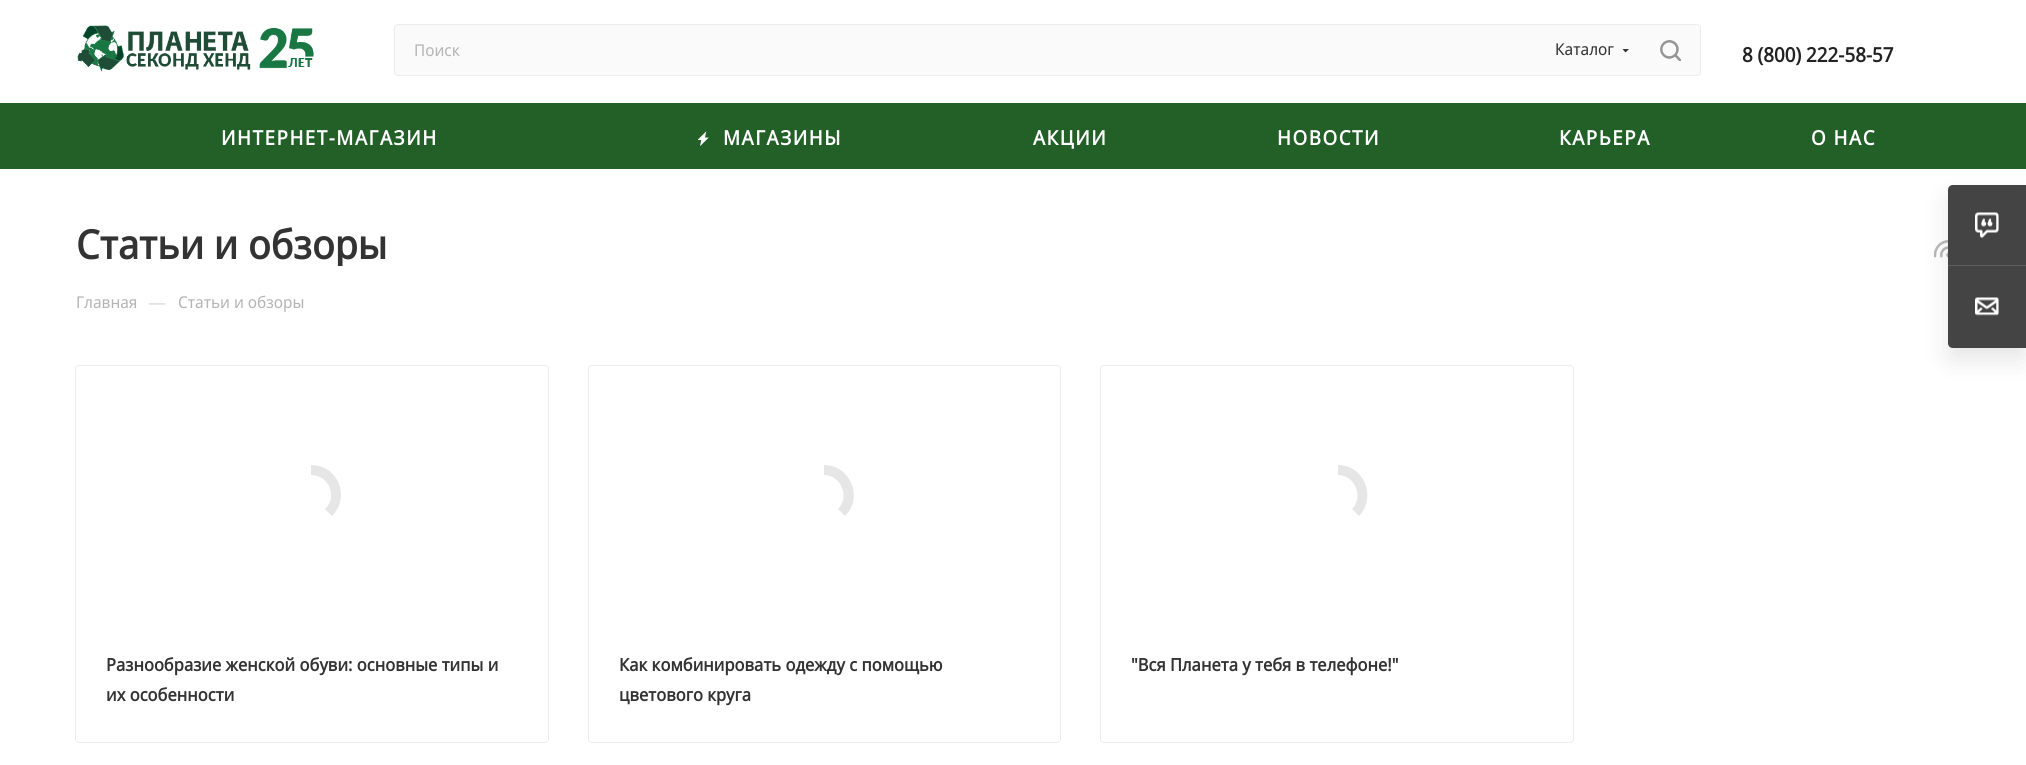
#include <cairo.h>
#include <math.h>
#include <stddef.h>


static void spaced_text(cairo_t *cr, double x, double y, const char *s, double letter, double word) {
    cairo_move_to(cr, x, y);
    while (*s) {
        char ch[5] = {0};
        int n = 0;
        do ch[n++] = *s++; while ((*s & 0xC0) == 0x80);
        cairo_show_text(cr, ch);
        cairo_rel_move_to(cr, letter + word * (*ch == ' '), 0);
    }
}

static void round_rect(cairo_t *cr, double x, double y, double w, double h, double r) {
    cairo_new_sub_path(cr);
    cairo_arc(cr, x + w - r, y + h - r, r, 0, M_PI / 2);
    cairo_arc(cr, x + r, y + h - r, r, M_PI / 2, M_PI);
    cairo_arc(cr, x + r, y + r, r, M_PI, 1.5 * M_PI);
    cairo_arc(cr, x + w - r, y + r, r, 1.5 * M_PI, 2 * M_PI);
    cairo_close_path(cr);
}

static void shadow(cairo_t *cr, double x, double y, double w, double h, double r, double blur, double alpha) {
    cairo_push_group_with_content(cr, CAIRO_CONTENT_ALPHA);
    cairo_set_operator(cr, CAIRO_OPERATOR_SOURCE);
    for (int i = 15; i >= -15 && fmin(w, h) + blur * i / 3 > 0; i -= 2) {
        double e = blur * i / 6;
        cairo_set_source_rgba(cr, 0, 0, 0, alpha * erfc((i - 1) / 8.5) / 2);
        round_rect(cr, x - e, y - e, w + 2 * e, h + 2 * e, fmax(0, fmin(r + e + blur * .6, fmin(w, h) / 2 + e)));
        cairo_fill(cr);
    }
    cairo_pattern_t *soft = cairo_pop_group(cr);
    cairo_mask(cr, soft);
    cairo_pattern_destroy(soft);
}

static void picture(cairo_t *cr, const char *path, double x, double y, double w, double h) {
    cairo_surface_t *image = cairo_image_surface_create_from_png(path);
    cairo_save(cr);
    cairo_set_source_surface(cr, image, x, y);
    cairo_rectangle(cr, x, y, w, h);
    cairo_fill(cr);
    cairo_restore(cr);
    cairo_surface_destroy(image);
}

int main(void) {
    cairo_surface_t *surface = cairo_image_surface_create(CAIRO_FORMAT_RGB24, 2026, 765);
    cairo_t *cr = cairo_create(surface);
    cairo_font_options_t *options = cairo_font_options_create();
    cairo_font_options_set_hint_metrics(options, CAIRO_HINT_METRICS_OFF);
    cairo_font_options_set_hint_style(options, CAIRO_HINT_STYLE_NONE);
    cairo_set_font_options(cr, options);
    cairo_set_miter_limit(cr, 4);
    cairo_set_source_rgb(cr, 1, 1, 1);
    cairo_paint(cr);
    picture(cr, "img1.png", 77, 25, 237, 47);
    cairo_set_source_rgb(cr, 0.98, 0.98, 0.98);
    round_rect(cr, 394.5, 24.5, 1306, 51, 3.5);
    cairo_fill_preserve(cr);
    cairo_set_source_rgb(cr, 0.925, 0.925, 0.925);
    cairo_set_line_width(cr, 1);
    cairo_stroke(cr);
    cairo_select_font_face(cr, "Noto Sans Display", CAIRO_FONT_SLANT_NORMAL, CAIRO_FONT_WEIGHT_NORMAL);
    cairo_set_font_size(cr, 16.25);
    cairo_set_source_rgb(cr, 0.714, 0.71, 0.71);
    cairo_move_to(cr, 414, 56);
    cairo_show_text(cr, "Поиск");
    cairo_set_source_rgb(cr, 0.2, 0.2, 0.2);
    cairo_move_to(cr, 1555, 55);
    cairo_show_text(cr, "Каталог");
    cairo_set_fill_rule(cr, CAIRO_FILL_RULE_EVEN_ODD);
    cairo_new_path(cr);
    cairo_move_to(cr, 1622.5, 49);
    cairo_line_to(cr, 1629, 49);
    cairo_line_to(cr, 1625.5, 52.5);
    cairo_close_path(cr);
    cairo_fill(cr);
    picture(cr, "img2.png", 1660, 40, 21, 21);
    cairo_select_font_face(cr, "Noto Sans Display", CAIRO_FONT_SLANT_NORMAL, CAIRO_FONT_WEIGHT_BOLD);
    cairo_set_font_size(cr, 20);
    cairo_set_source_rgb(cr, 0.133, 0.133, 0.133);
    cairo_move_to(cr, 1742, 62);
    cairo_show_text(cr, "8 (800) 222-58-57");
    cairo_set_source_rgb(cr, 0.133, 0.376, 0.153);
    cairo_rectangle(cr, 0, 103, 2026, 66);
    cairo_fill(cr);
    cairo_set_source_rgb(cr, 1, 1, 1);
    spaced_text(cr, 221, 145, "ИНТЕРНЕТ-МАГАЗИН", 1.5, 0);
    picture(cr, "img3.png", 698, 131, 11, 15);
    spaced_text(cr, 723, 145, "МАГАЗИНЫ", 1.5, 0);
    spaced_text(cr, 1033, 145, "АКЦИИ", 1.5, 0);
    spaced_text(cr, 1277, 145, "НОВОСТИ", 1.5, 0);
    spaced_text(cr, 1559, 145, "КАРЬЕРА", 1.5, 0);
    spaced_text(cr, 1811, 145, "О НАС", 1.5, 0);
    cairo_save(cr);
    cairo_set_fill_rule(cr, CAIRO_FILL_RULE_WINDING);
    cairo_rectangle(cr, 76, 221, 1818, 45);
    cairo_clip(cr);
    cairo_set_font_size(cr, 40);
    cairo_set_source_rgb(cr, 0.2, 0.2, 0.2);
    cairo_move_to(cr, 76, 259);
    cairo_show_text(cr, "Статьи и обзоры");
    cairo_restore(cr);
    picture(cr, "img4.png", 1934, 240, 14, 18);
    cairo_select_font_face(cr, "Noto Sans Display", CAIRO_FONT_SLANT_NORMAL, CAIRO_FONT_WEIGHT_NORMAL);
    cairo_set_font_size(cr, 16.25);
    cairo_set_source_rgb(cr, 0.714, 0.71, 0.71);
    cairo_move_to(cr, 76, 308);
    cairo_show_text(cr, "Главная");
    cairo_set_font_size(cr, 19);
    cairo_set_source_rgb(cr, 0.867, 0.867, 0.867);
    cairo_move_to(cr, 148, 309);
    cairo_show_text(cr, "—");
    cairo_set_font_size(cr, 16.25);
    cairo_set_source_rgb(cr, 0.714, 0.71, 0.71);
    cairo_move_to(cr, 178, 308);
    cairo_show_text(cr, "Статьи и обзоры");
    round_rect(cr, 75.5, 365.5, 473, 377, 3.5);
    cairo_set_source_rgb(cr, 0.925, 0.925, 0.925);
    cairo_stroke(cr);
    cairo_set_source_rgb(cr, 0.902, 0.902, 0.902);
    cairo_set_fill_rule(cr, CAIRO_FILL_RULE_WINDING);
    cairo_new_path(cr);
    cairo_move_to(cr, 311, 465);
    cairo_curve_to(cr, 338, 465, 351, 497, 332, 516);
    cairo_line_to(cr, 325, 509);
    cairo_curve_to(cr, 338, 497, 329, 475, 311, 475);
    cairo_close_path(cr);
    cairo_fill(cr);
    cairo_select_font_face(cr, "Noto Sans Display", CAIRO_FONT_SLANT_NORMAL, CAIRO_FONT_WEIGHT_BOLD);
    cairo_set_font_size(cr, 17.5);
    cairo_set_source_rgb(cr, 0.2, 0.2, 0.2);
    cairo_move_to(cr, 106, 671);
    cairo_show_text(cr, "Разнообразие женской обуви: основные типы и");
    cairo_move_to(cr, 106, 701);
    cairo_show_text(cr, "их особенности");
    round_rect(cr, 588.5, 365.5, 472, 377, 3.5);
    cairo_set_source_rgb(cr, 0.925, 0.925, 0.925);
    cairo_stroke(cr);
    cairo_set_source_rgb(cr, 0.902, 0.902, 0.902);
    cairo_new_path(cr);
    cairo_move_to(cr, 824, 465);
    cairo_curve_to(cr, 850, 465, 864, 497, 845, 516);
    cairo_line_to(cr, 838, 509);
    cairo_curve_to(cr, 850, 497, 841, 475, 824, 475);
    cairo_close_path(cr);
    cairo_fill(cr);
    cairo_set_source_rgb(cr, 0.2, 0.2, 0.2);
    cairo_move_to(cr, 619, 671);
    cairo_show_text(cr, "Как комбинировать одежду с помощью");
    cairo_move_to(cr, 619, 701);
    cairo_show_text(cr, "цветового круга");
    round_rect(cr, 1100.5, 365.5, 473, 377, 3.5);
    cairo_set_source_rgb(cr, 0.925, 0.925, 0.925);
    cairo_stroke(cr);
    cairo_set_source_rgb(cr, 0.902, 0.902, 0.902);
    cairo_new_path(cr);
    cairo_move_to(cr, 1338, 465);
    cairo_curve_to(cr, 1364, 465, 1377, 497, 1359, 516);
    cairo_line_to(cr, 1352, 509);
    cairo_curve_to(cr, 1364, 497, 1355, 475, 1338, 475);
    cairo_close_path(cr);
    cairo_fill(cr);
    cairo_set_source_rgb(cr, 0.2, 0.2, 0.2);
    cairo_move_to(cr, 1131, 671);
    cairo_show_text(cr, "\"Вся Планета у тебя в телефоне!\"");
    cairo_set_source_rgb(cr, 0, 0, 0);
    shadow(cr, 1948, 198, 78, 162, 5, 12.5, 0.1);
    cairo_set_source_rgb(cr, 0.267, 0.267, 0.267);
    cairo_new_path(cr);
    cairo_move_to(cr, 1953, 185);
    cairo_line_to(cr, 2026, 185);
    cairo_line_to(cr, 2026, 348);
    cairo_line_to(cr, 1953, 348);
    cairo_curve_to(cr, 1950, 348, 1948, 346, 1948, 343);
    cairo_line_to(cr, 1948, 190);
    cairo_curve_to(cr, 1948, 187, 1950, 185, 1953, 185);
    cairo_close_path(cr);
    cairo_fill(cr);
    cairo_set_source_rgb(cr, 0.365, 0.365, 0.365);
    cairo_rectangle(cr, 1948, 265, 78, 1);
    cairo_fill(cr);
    picture(cr, "img5.png", 1975, 212, 24, 26);
    picture(cr, "img6.png", 1975, 297, 24, 19);
    cairo_surface_write_to_png(surface, "page.png");
    cairo_font_options_destroy(options);
    cairo_destroy(cr);
    cairo_surface_destroy(surface);
    return 0;
}
